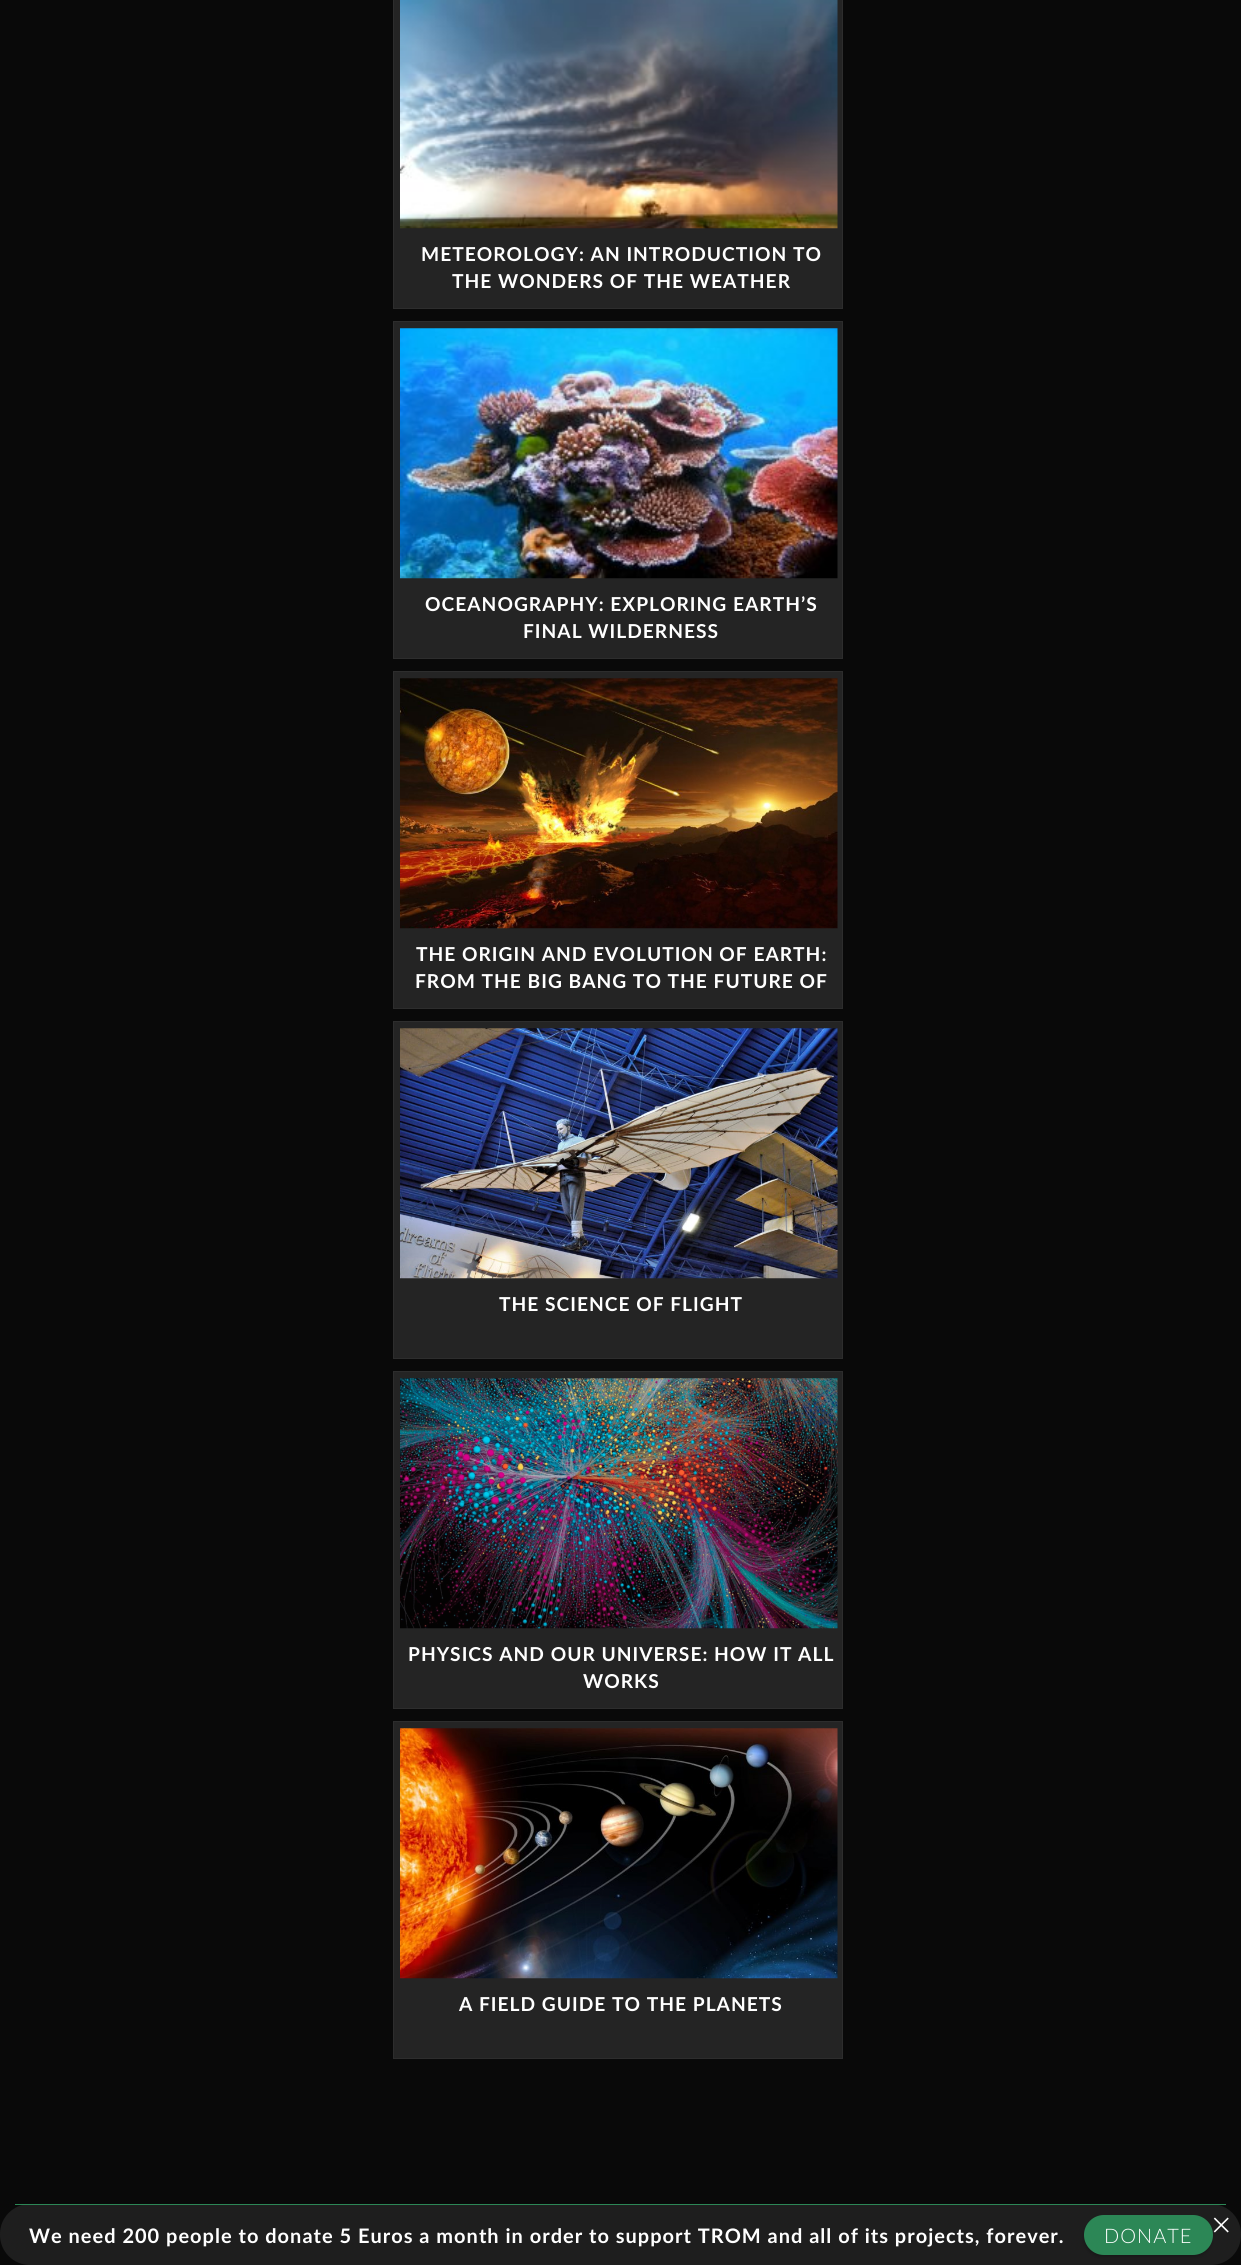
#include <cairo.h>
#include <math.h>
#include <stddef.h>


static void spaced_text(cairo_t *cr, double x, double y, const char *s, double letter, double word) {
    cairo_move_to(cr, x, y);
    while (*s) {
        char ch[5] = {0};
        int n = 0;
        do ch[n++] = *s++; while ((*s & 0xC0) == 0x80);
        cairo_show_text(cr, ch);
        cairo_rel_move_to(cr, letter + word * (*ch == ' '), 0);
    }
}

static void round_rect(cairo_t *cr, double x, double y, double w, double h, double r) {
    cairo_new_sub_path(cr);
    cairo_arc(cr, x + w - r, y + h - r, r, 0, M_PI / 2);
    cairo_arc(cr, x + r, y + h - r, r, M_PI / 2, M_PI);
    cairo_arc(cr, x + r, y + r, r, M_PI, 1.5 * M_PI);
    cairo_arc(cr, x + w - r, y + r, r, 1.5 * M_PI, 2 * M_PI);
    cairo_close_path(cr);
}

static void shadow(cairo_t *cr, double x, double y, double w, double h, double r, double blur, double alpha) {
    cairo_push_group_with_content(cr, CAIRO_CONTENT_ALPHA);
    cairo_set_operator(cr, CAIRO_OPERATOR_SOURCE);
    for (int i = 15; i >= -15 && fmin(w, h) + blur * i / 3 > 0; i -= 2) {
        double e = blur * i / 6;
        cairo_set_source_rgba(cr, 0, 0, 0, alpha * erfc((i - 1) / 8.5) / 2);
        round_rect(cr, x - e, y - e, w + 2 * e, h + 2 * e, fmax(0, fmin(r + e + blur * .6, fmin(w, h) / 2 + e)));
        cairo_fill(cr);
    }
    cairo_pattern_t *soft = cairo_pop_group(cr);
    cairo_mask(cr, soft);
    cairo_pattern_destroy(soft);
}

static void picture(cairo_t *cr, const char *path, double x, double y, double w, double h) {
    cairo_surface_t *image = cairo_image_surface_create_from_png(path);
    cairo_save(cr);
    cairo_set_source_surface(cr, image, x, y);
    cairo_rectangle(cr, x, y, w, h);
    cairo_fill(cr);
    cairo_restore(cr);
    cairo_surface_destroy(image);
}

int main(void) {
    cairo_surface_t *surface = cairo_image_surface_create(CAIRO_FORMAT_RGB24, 1241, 2265);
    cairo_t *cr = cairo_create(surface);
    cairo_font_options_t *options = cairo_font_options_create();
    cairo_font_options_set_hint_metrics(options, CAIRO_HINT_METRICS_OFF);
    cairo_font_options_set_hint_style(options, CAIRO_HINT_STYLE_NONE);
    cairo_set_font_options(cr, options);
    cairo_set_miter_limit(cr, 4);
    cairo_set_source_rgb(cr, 0.039, 0.039, 0.039);
    cairo_paint(cr);
    cairo_set_source_rgb(cr, 0.141, 0.141, 0.141);
    cairo_rectangle(cr, 393.5, -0.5, 449, 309);
    cairo_fill_preserve(cr);
    cairo_set_source_rgb(cr, 0.176, 0.176, 0.176);
    cairo_set_line_width(cr, 1);
    cairo_stroke(cr);
    picture(cr, "img1.png", 400, 0, 438, 229);
    cairo_select_font_face(cr, "Lato", CAIRO_FONT_SLANT_NORMAL, CAIRO_FONT_WEIGHT_BOLD);
    cairo_set_font_size(cr, 19.2);
    cairo_set_source_rgb(cr, 1, 1, 1);
    spaced_text(cr, 421, 261, "METEOROLOGY: AN INTRODUCTION TO", 1, 0);
    spaced_text(cr, 452, 288, "THE WONDERS OF THE WEATHER", 1, 0);
    cairo_set_source_rgb(cr, 0.141, 0.141, 0.141);
    cairo_rectangle(cr, 393.5, 321.5, 449, 337);
    cairo_fill_preserve(cr);
    cairo_set_source_rgb(cr, 0.176, 0.176, 0.176);
    cairo_stroke(cr);
    picture(cr, "img2.png", 400, 328, 438, 251);
    cairo_set_source_rgb(cr, 1, 1, 1);
    spaced_text(cr, 425, 611, "OCEANOGRAPHY: EXPLORING EARTH’S", 1, 0);
    spaced_text(cr, 523, 638, "FINAL WILDERNESS", 1, 0);
    cairo_set_source_rgb(cr, 0.141, 0.141, 0.141);
    cairo_rectangle(cr, 393.5, 671.5, 449, 337);
    cairo_fill_preserve(cr);
    cairo_set_source_rgb(cr, 0.176, 0.176, 0.176);
    cairo_stroke(cr);
    picture(cr, "img3.png", 400, 678, 438, 251);
    cairo_set_source_rgb(cr, 1, 1, 1);
    spaced_text(cr, 416, 961, "THE ORIGIN AND EVOLUTION OF EARTH:", 1, 0);
    spaced_text(cr, 415, 988, "FROM THE BIG BANG TO THE FUTURE OF", 1, 0);
    cairo_set_source_rgb(cr, 0.141, 0.141, 0.141);
    cairo_rectangle(cr, 393.5, 1021.5, 449, 337);
    cairo_fill_preserve(cr);
    cairo_set_source_rgb(cr, 0.176, 0.176, 0.176);
    cairo_stroke(cr);
    picture(cr, "img4.png", 400, 1028, 438, 251);
    cairo_set_source_rgb(cr, 1, 1, 1);
    spaced_text(cr, 499, 1311, "THE SCIENCE OF FLIGHT", 1, 0);
    cairo_set_source_rgb(cr, 0.141, 0.141, 0.141);
    cairo_rectangle(cr, 393.5, 1371.5, 449, 337);
    cairo_fill_preserve(cr);
    cairo_set_source_rgb(cr, 0.176, 0.176, 0.176);
    cairo_stroke(cr);
    picture(cr, "img5.png", 400, 1378, 438, 251);
    cairo_set_source_rgb(cr, 1, 1, 1);
    spaced_text(cr, 408, 1661, "PHYSICS AND OUR UNIVERSE: HOW IT ALL", 1, 0);
    spaced_text(cr, 583, 1688, "WORKS", 1, 0);
    cairo_set_source_rgb(cr, 0.141, 0.141, 0.141);
    cairo_rectangle(cr, 393.5, 1721.5, 449, 337);
    cairo_fill_preserve(cr);
    cairo_set_source_rgb(cr, 0.176, 0.176, 0.176);
    cairo_stroke(cr);
    picture(cr, "img6.png", 400, 1728, 438, 251);
    cairo_set_source_rgb(cr, 1, 1, 1);
    spaced_text(cr, 459, 2011, "A FIELD GUIDE TO THE PLANETS", 1, 0);
    cairo_set_source_rgb(cr, 0.118, 0.118, 0.118);
    round_rect(cr, 0, 2204, 1241, 61, 30);
    cairo_fill(cr);
    cairo_set_source_rgb(cr, 0.173, 0.529, 0.337);
    cairo_rectangle(cr, 15, 2204, 1211, 1);
    cairo_fill(cr);
    cairo_set_source_rgb(cr, 0, 0, 0);
    shadow(cr, 1086, 2220, 124, 35, 17.5, 2.5, 0.5);
    picture(cr, "img7.png", 1213, 2217, 16, 16);
    cairo_set_font_size(cr, 20);
    cairo_set_source_rgb(cr, 1, 1, 1);
    spaced_text(cr, 29, 2243, "We need 200 people to donate 5 Euros a month in order to support TROM and all of its projects, forever.", 1, 0);
    cairo_set_source_rgb(cr, 0.173, 0.529, 0.337);
    round_rect(cr, 1084, 2215, 129, 40, 20);
    cairo_fill(cr);
    cairo_select_font_face(cr, "Lato Light", CAIRO_FONT_SLANT_NORMAL, CAIRO_FONT_WEIGHT_NORMAL);
    cairo_set_source_rgb(cr, 1, 1, 1);
    spaced_text(cr, 1104, 2243, "DONATE", 1, 0);
    cairo_surface_write_to_png(surface, "page.png");
    cairo_font_options_destroy(options);
    cairo_destroy(cr);
    cairo_surface_destroy(surface);
    return 0;
}
